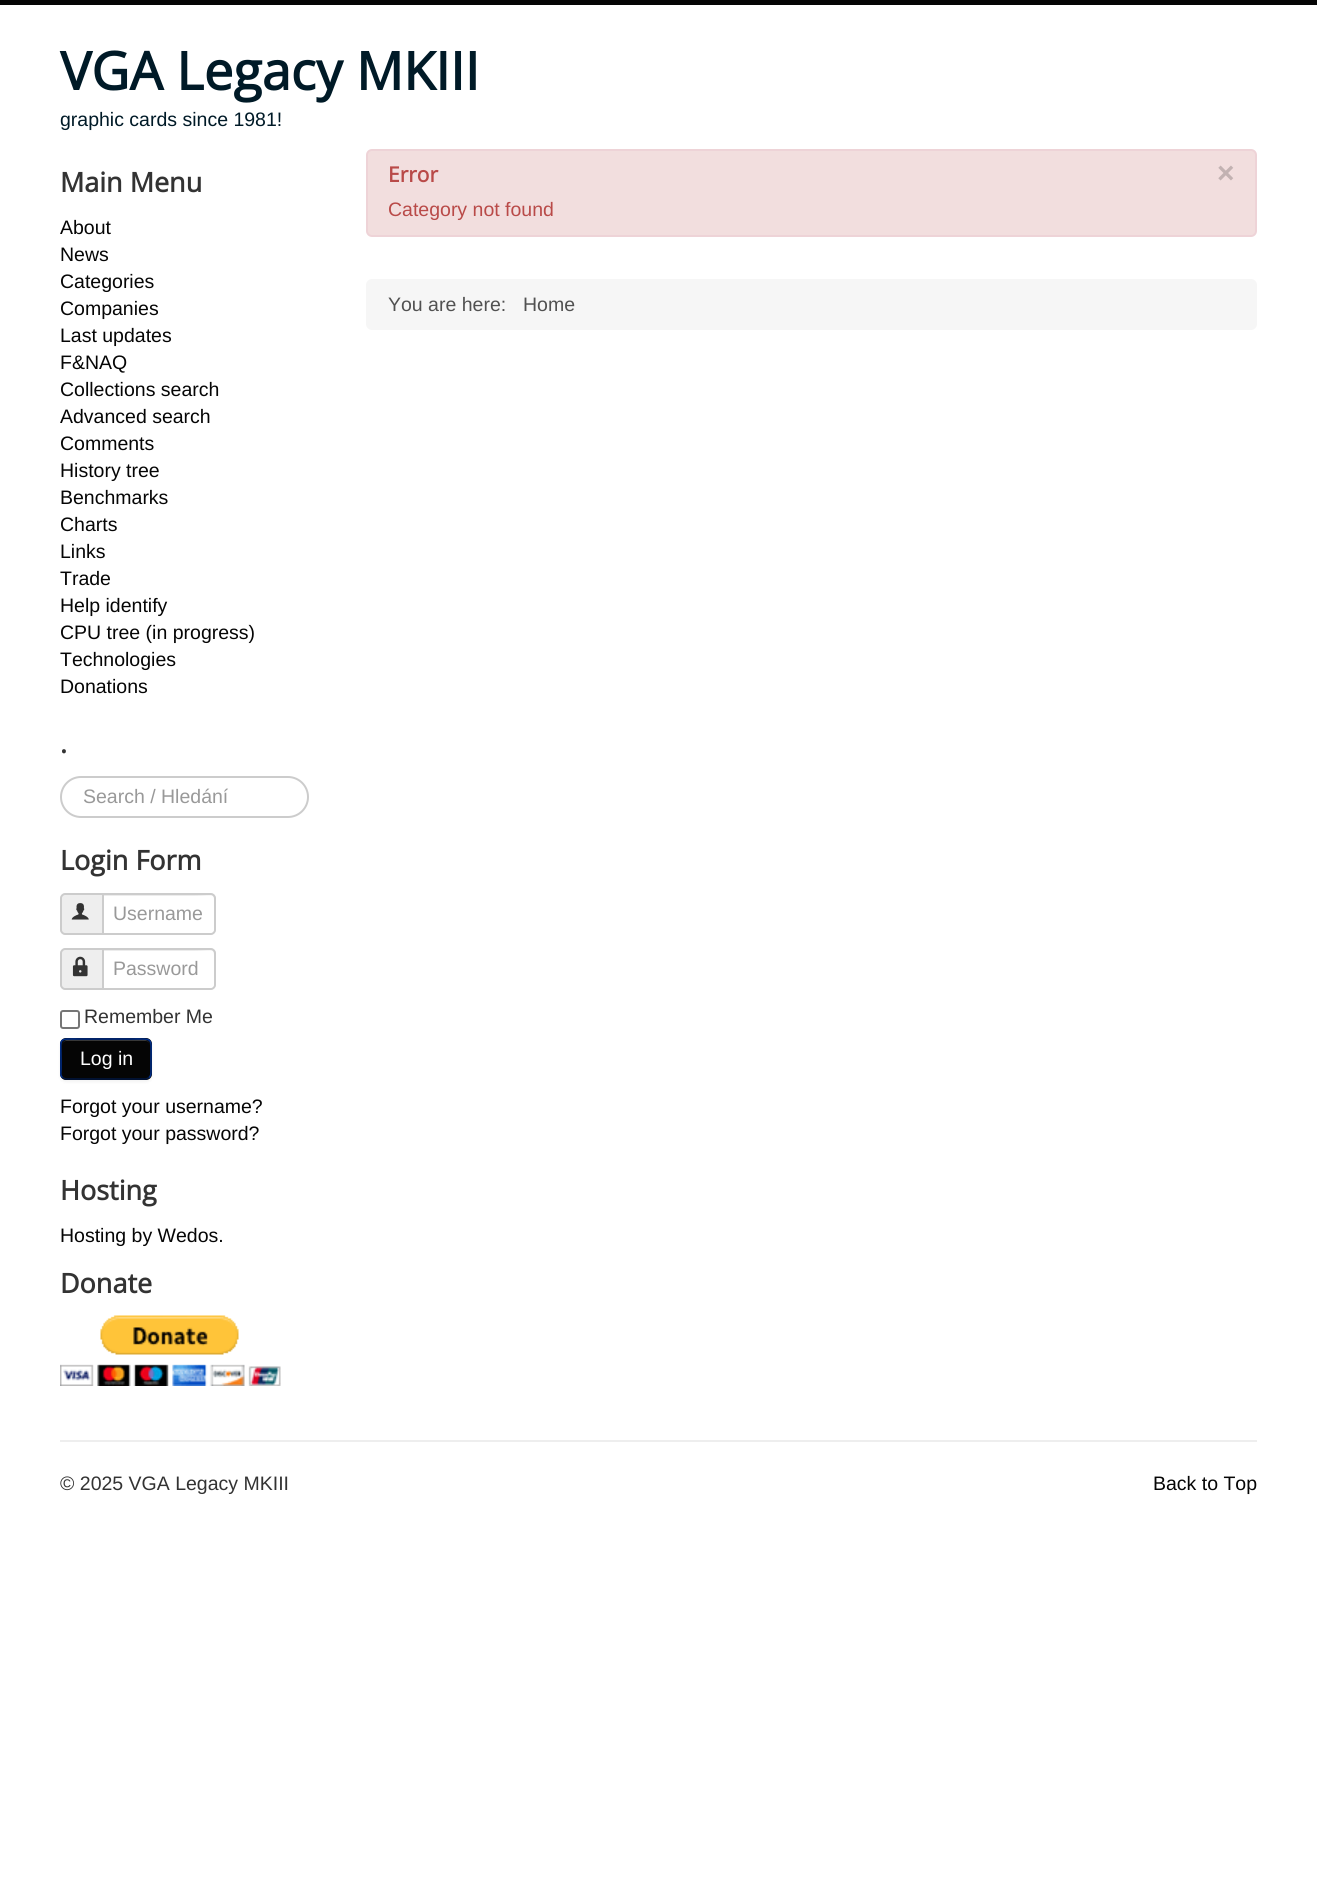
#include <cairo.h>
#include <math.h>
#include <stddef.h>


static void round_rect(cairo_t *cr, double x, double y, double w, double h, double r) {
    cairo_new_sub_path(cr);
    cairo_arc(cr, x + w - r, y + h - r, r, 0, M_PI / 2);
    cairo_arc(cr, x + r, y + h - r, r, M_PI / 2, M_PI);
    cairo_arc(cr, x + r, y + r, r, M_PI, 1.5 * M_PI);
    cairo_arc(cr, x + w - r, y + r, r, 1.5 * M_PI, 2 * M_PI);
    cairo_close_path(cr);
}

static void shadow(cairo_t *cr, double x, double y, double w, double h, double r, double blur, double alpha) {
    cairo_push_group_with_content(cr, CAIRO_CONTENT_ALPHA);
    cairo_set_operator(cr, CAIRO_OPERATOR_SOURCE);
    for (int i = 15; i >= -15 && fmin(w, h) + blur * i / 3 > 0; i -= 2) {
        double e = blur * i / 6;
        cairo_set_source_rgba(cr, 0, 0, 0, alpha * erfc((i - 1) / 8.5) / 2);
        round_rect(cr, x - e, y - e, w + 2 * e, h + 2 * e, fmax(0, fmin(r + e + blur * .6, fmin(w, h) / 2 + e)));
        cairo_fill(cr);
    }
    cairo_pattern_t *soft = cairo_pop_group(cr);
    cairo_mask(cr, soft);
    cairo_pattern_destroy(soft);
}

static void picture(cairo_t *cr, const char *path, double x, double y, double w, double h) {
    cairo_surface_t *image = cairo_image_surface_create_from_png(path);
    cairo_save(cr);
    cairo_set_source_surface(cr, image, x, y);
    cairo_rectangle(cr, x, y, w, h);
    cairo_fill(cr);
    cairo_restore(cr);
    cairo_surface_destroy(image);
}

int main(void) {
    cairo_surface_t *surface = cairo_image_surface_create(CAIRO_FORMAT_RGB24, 1317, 1893);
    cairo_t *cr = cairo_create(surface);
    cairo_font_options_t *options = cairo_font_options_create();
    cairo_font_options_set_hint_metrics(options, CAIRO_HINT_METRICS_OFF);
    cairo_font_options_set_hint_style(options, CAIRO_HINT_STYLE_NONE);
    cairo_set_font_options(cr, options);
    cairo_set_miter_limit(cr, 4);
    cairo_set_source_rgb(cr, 1, 1, 1);
    cairo_paint(cr);
    cairo_set_source_rgb(cr, 0.02, 0.02, 0.02);
    cairo_rectangle(cr, 0, 0, 1317, 5);
    cairo_fill(cr);
    cairo_select_font_face(cr, "Open Sans", CAIRO_FONT_SLANT_NORMAL, CAIRO_FONT_WEIGHT_BOLD);
    cairo_set_font_size(cr, 52.5);
    cairo_set_source_rgb(cr, 0, 0.102, 0.153);
    cairo_move_to(cr, 60, 90);
    cairo_show_text(cr, "VGA Legacy MKIII");
    cairo_select_font_face(cr, "Liberation Sans", CAIRO_FONT_SLANT_NORMAL, CAIRO_FONT_WEIGHT_NORMAL);
    cairo_set_font_size(cr, 19.5);
    cairo_move_to(cr, 60, 126);
    cairo_show_text(cr, "graphic cards since 1981!");
    cairo_select_font_face(cr, "Open Sans", CAIRO_FONT_SLANT_NORMAL, CAIRO_FONT_WEIGHT_BOLD);
    cairo_set_font_size(cr, 27);
    cairo_set_source_rgb(cr, 0.2, 0.2, 0.2);
    cairo_move_to(cr, 60, 192);
    cairo_show_text(cr, "Main Menu");
    cairo_select_font_face(cr, "Liberation Sans", CAIRO_FONT_SLANT_NORMAL, CAIRO_FONT_WEIGHT_NORMAL);
    cairo_set_font_size(cr, 19.5);
    cairo_set_source_rgb(cr, 0.02, 0.02, 0.02);
    cairo_move_to(cr, 60, 234);
    cairo_show_text(cr, "About");
    cairo_move_to(cr, 60, 261);
    cairo_show_text(cr, "News");
    cairo_move_to(cr, 60, 288);
    cairo_show_text(cr, "Categories");
    cairo_move_to(cr, 60, 315);
    cairo_show_text(cr, "Companies");
    cairo_move_to(cr, 60, 342);
    cairo_show_text(cr, "Last updates");
    cairo_move_to(cr, 60, 369);
    cairo_show_text(cr, "F&NAQ");
    cairo_move_to(cr, 60, 396);
    cairo_show_text(cr, "Collections search");
    cairo_move_to(cr, 60, 423);
    cairo_show_text(cr, "Advanced search");
    cairo_move_to(cr, 60, 450);
    cairo_show_text(cr, "Comments");
    cairo_move_to(cr, 60, 477);
    cairo_show_text(cr, "History tree");
    cairo_move_to(cr, 60, 504);
    cairo_show_text(cr, "Benchmarks");
    cairo_move_to(cr, 60, 531);
    cairo_show_text(cr, "Charts");
    cairo_move_to(cr, 60, 558);
    cairo_show_text(cr, "Links");
    cairo_move_to(cr, 60, 585);
    cairo_show_text(cr, "Trade");
    cairo_move_to(cr, 60, 612);
    cairo_show_text(cr, "Help identify");
    cairo_move_to(cr, 60, 639);
    cairo_show_text(cr, "CPU tree (in progress)");
    cairo_move_to(cr, 60, 666);
    cairo_show_text(cr, "Technologies");
    cairo_move_to(cr, 60, 693);
    cairo_show_text(cr, "Donations");
    cairo_select_font_face(cr, "Open Sans", CAIRO_FONT_SLANT_NORMAL, CAIRO_FONT_WEIGHT_BOLD);
    cairo_set_font_size(cr, 27);
    cairo_set_source_rgb(cr, 0.2, 0.2, 0.2);
    cairo_move_to(cr, 60, 753);
    cairo_show_text(cr, ".");
    round_rect(cr, 61, 777, 247, 40, 20);
    cairo_set_source_rgb(cr, 0.8, 0.8, 0.8);
    cairo_stroke(cr);
    cairo_select_font_face(cr, "Liberation Sans", CAIRO_FONT_SLANT_NORMAL, CAIRO_FONT_WEIGHT_NORMAL);
    cairo_set_font_size(cr, 19.5);
    cairo_set_source_rgb(cr, 0.6, 0.6, 0.6);
    cairo_move_to(cr, 83, 803);
    cairo_show_text(cr, "Search / Hledání");
    cairo_select_font_face(cr, "Open Sans", CAIRO_FONT_SLANT_NORMAL, CAIRO_FONT_WEIGHT_BOLD);
    cairo_set_font_size(cr, 27);
    cairo_set_source_rgb(cr, 0.2, 0.2, 0.2);
    cairo_move_to(cr, 60, 870);
    cairo_show_text(cr, "Login Form");
    cairo_set_source_rgb(cr, 0.933, 0.933, 0.933);
    cairo_new_path(cr);
    cairo_move_to(cr, 65, 894);
    cairo_line_to(cr, 103, 894);
    cairo_line_to(cr, 103, 934);
    cairo_line_to(cr, 65, 934);
    cairo_curve_to(cr, 63, 934, 61, 932, 61, 930);
    cairo_line_to(cr, 61, 898);
    cairo_curve_to(cr, 61, 896, 63, 894, 65, 894);
    cairo_close_path(cr);
    cairo_fill_preserve(cr);
    cairo_set_source_rgb(cr, 0.8, 0.8, 0.8);
    cairo_stroke(cr);
    picture(cr, "img1.png", 71, 903, 18, 17);
    cairo_set_source_rgb(cr, 1, 1, 1);
    cairo_new_path(cr);
    cairo_move_to(cr, 102, 893);
    cairo_line_to(cr, 211, 893);
    cairo_curve_to(cr, 214, 893, 216, 895, 216, 898);
    cairo_line_to(cr, 216, 930);
    cairo_curve_to(cr, 216, 933, 214, 935, 211, 935);
    cairo_line_to(cr, 102, 935);
    cairo_close_path(cr);
    cairo_fill(cr);
    cairo_set_source_rgb(cr, 0.925, 0.925, 0.925);
    cairo_new_path(cr);
    cairo_move_to(cr, 104, 896);
    cairo_line_to(cr, 194, 896);
    cairo_curve_to(cr, 216, 896, 214, 891, 214, 909);
    cairo_line_to(cr, 214, 932);
    cairo_curve_to(cr, 215, 932, 215, 931, 215, 930);
    cairo_line_to(cr, 215, 897);
    cairo_curve_to(cr, 215, 895, 214, 894, 212, 894);
    cairo_line_to(cr, 104, 894);
    cairo_close_path(cr);
    cairo_fill(cr);
    cairo_new_path(cr);
    cairo_move_to(cr, 103, 894);
    cairo_line_to(cr, 211, 894);
    cairo_curve_to(cr, 213, 894, 215, 896, 215, 898);
    cairo_line_to(cr, 215, 930);
    cairo_curve_to(cr, 215, 932, 213, 934, 211, 934);
    cairo_line_to(cr, 103, 934);
    cairo_close_path(cr);
    cairo_set_source_rgb(cr, 0.8, 0.8, 0.8);
    cairo_stroke(cr);
    cairo_select_font_face(cr, "Liberation Sans", CAIRO_FONT_SLANT_NORMAL, CAIRO_FONT_WEIGHT_NORMAL);
    cairo_set_font_size(cr, 19.5);
    cairo_set_source_rgb(cr, 0.6, 0.6, 0.6);
    cairo_move_to(cr, 113, 920);
    cairo_show_text(cr, "Username");
    cairo_set_source_rgb(cr, 0.933, 0.933, 0.933);
    cairo_new_path(cr);
    cairo_move_to(cr, 65, 949);
    cairo_line_to(cr, 103, 949);
    cairo_line_to(cr, 103, 989);
    cairo_line_to(cr, 65, 989);
    cairo_curve_to(cr, 63, 989, 61, 987, 61, 985);
    cairo_line_to(cr, 61, 953);
    cairo_curve_to(cr, 61, 951, 63, 949, 65, 949);
    cairo_close_path(cr);
    cairo_fill_preserve(cr);
    cairo_set_source_rgb(cr, 0.8, 0.8, 0.8);
    cairo_stroke(cr);
    picture(cr, "img2.png", 72, 956, 16, 21);
    cairo_set_source_rgb(cr, 1, 1, 1);
    cairo_new_path(cr);
    cairo_move_to(cr, 102, 948);
    cairo_line_to(cr, 211, 948);
    cairo_curve_to(cr, 214, 948, 216, 950, 216, 953);
    cairo_line_to(cr, 216, 985);
    cairo_curve_to(cr, 216, 988, 214, 990, 211, 990);
    cairo_line_to(cr, 102, 990);
    cairo_close_path(cr);
    cairo_fill(cr);
    cairo_set_source_rgb(cr, 0.925, 0.925, 0.925);
    cairo_new_path(cr);
    cairo_move_to(cr, 104, 951);
    cairo_line_to(cr, 194, 951);
    cairo_curve_to(cr, 216, 951, 214, 946, 214, 965);
    cairo_line_to(cr, 214, 988);
    cairo_curve_to(cr, 215, 988, 215, 987, 215, 986);
    cairo_line_to(cr, 215, 953);
    cairo_curve_to(cr, 215, 951, 214, 950, 212, 950);
    cairo_line_to(cr, 104, 950);
    cairo_close_path(cr);
    cairo_fill(cr);
    cairo_new_path(cr);
    cairo_move_to(cr, 103, 949);
    cairo_line_to(cr, 211, 949);
    cairo_curve_to(cr, 213, 949, 215, 951, 215, 953);
    cairo_line_to(cr, 215, 985);
    cairo_curve_to(cr, 215, 987, 213, 989, 211, 989);
    cairo_line_to(cr, 103, 989);
    cairo_close_path(cr);
    cairo_set_source_rgb(cr, 0.8, 0.8, 0.8);
    cairo_stroke(cr);
    cairo_set_source_rgb(cr, 0.6, 0.6, 0.6);
    cairo_move_to(cr, 113, 975);
    cairo_show_text(cr, "Password");
    round_rect(cr, 61, 1011, 18, 17, 2);
    cairo_set_source_rgb(cr, 0.463, 0.463, 0.463);
    cairo_stroke(cr);
    cairo_set_source_rgb(cr, 0.2, 0.2, 0.2);
    cairo_move_to(cr, 84, 1023);
    cairo_show_text(cr, "Remember Me");
    cairo_set_source_rgb(cr, 0, 0, 0);
    shadow(cr, 60, 1040, 92, 42, 6, 1.5, 0.05);
    cairo_set_source_rgb(cr, 0.02, 0.02, 0.02);
    round_rect(cr, 60, 1038, 92, 42, 6);
    cairo_fill(cr);
    cairo_set_source_rgb(cr, 0.216, 0.216, 0.216);
    cairo_new_path(cr);
    cairo_move_to(cr, 66, 1041);
    cairo_line_to(cr, 146, 1041);
    cairo_curve_to(cr, 148, 1041, 150, 1043, 150, 1046);
    cairo_curve_to(cr, 150, 1037, 138, 1040, 132, 1040);
    cairo_line_to(cr, 80, 1040);
    cairo_curve_to(cr, 74, 1040, 62, 1037, 62, 1046);
    cairo_curve_to(cr, 62, 1043, 64, 1041, 66, 1041);
    cairo_close_path(cr);
    cairo_fill(cr);
    cairo_new_path(cr);
    cairo_move_to(cr, 149, 1077.5);
    cairo_line_to(cr, 146, 1079);
    cairo_line_to(cr, 65.5, 1079);
    cairo_line_to(cr, 62.5, 1077.5);
    cairo_set_source_rgb(cr, 0, 0.086, 0.255);
    cairo_set_line_width(cr, 1.5);
    cairo_stroke(cr);
    cairo_new_path(cr);
    cairo_move_to(cr, 62.5, 1077.5);
    cairo_curve_to(cr, 60, 1075.5, 61, 1072, 61, 1069);
    cairo_line_to(cr, 61, 1059);
    cairo_curve_to(cr, 61, 1037, 57.5, 1039, 79, 1039);
    cairo_line_to(cr, 132, 1039);
    cairo_curve_to(cr, 154, 1039, 151, 1037, 151, 1059);
    cairo_line_to(cr, 151, 1069);
    cairo_curve_to(cr, 151, 1072, 151.5, 1075.5, 149, 1077.5);
    cairo_set_source_rgb(cr, 0, 0.184, 0.553);
    cairo_stroke(cr);
    cairo_set_source_rgb(cr, 1, 1, 1);
    cairo_move_to(cr, 80, 1065);
    cairo_show_text(cr, "Log in");
    cairo_set_source_rgb(cr, 0.02, 0.02, 0.02);
    cairo_move_to(cr, 60, 1113);
    cairo_show_text(cr, "Forgot your username?");
    cairo_move_to(cr, 60, 1140);
    cairo_show_text(cr, "Forgot your password?");
    cairo_select_font_face(cr, "Open Sans", CAIRO_FONT_SLANT_NORMAL, CAIRO_FONT_WEIGHT_BOLD);
    cairo_set_font_size(cr, 27);
    cairo_set_source_rgb(cr, 0.2, 0.2, 0.2);
    cairo_move_to(cr, 60, 1200);
    cairo_show_text(cr, "Hosting");
    cairo_select_font_face(cr, "Liberation Sans", CAIRO_FONT_SLANT_NORMAL, CAIRO_FONT_WEIGHT_NORMAL);
    cairo_set_font_size(cr, 19.5);
    cairo_set_source_rgb(cr, 0.02, 0.02, 0.02);
    cairo_move_to(cr, 60, 1242);
    cairo_show_text(cr, "Hosting by Wedos.");
    cairo_select_font_face(cr, "Open Sans", CAIRO_FONT_SLANT_NORMAL, CAIRO_FONT_WEIGHT_BOLD);
    cairo_set_font_size(cr, 27);
    cairo_set_source_rgb(cr, 0.2, 0.2, 0.2);
    cairo_move_to(cr, 60, 1293);
    cairo_show_text(cr, "Donate");
    picture(cr, "img3.png", 60, 1315, 221, 71);
    cairo_set_source_rgb(cr, 0.949, 0.871, 0.871);
    round_rect(cr, 367, 150, 889, 86, 5);
    cairo_fill_preserve(cr);
    cairo_set_source_rgb(cr, 0.933, 0.827, 0.843);
    cairo_set_line_width(cr, 2);
    cairo_stroke(cr);
    cairo_set_font_size(cr, 21);
    cairo_set_source_rgb(cr, 0.725, 0.29, 0.282);
    cairo_move_to(cr, 388, 182);
    cairo_show_text(cr, "Error");
    cairo_select_font_face(cr, "Liberation Sans", CAIRO_FONT_SLANT_NORMAL, CAIRO_FONT_WEIGHT_BOLD);
    cairo_set_font_size(cr, 30);
    cairo_set_source_rgb(cr, 0.761, 0.698, 0.698);
    cairo_move_to(cr, 1217, 183);
    cairo_show_text(cr, "×");
    cairo_select_font_face(cr, "Liberation Sans", CAIRO_FONT_SLANT_NORMAL, CAIRO_FONT_WEIGHT_NORMAL);
    cairo_set_font_size(cr, 19.5);
    cairo_set_source_rgb(cr, 0.725, 0.29, 0.282);
    cairo_move_to(cr, 388, 216);
    cairo_show_text(cr, "Category not found");
    cairo_set_source_rgb(cr, 0.961, 0.961, 0.961);
    round_rect(cr, 366, 279, 891, 51, 6);
    cairo_fill(cr);
    cairo_set_source_rgb(cr, 0.318, 0.318, 0.318);
    cairo_move_to(cr, 388, 311);
    cairo_show_text(cr, "You are here:");
    cairo_move_to(cr, 523, 311);
    cairo_show_text(cr, "Home");
    cairo_set_source_rgb(cr, 0.933, 0.933, 0.933);
    cairo_rectangle(cr, 60, 1440, 1197, 2);
    cairo_fill(cr);
    cairo_set_source_rgb(cr, 0.2, 0.2, 0.2);
    cairo_move_to(cr, 60, 1490);
    cairo_show_text(cr, "© 2025 VGA Legacy MKIII");
    cairo_set_source_rgb(cr, 0.02, 0.02, 0.02);
    cairo_move_to(cr, 1153, 1490);
    cairo_show_text(cr, "Back to Top");
    cairo_surface_write_to_png(surface, "page.png");
    cairo_font_options_destroy(options);
    cairo_destroy(cr);
    cairo_surface_destroy(surface);
    return 0;
}
